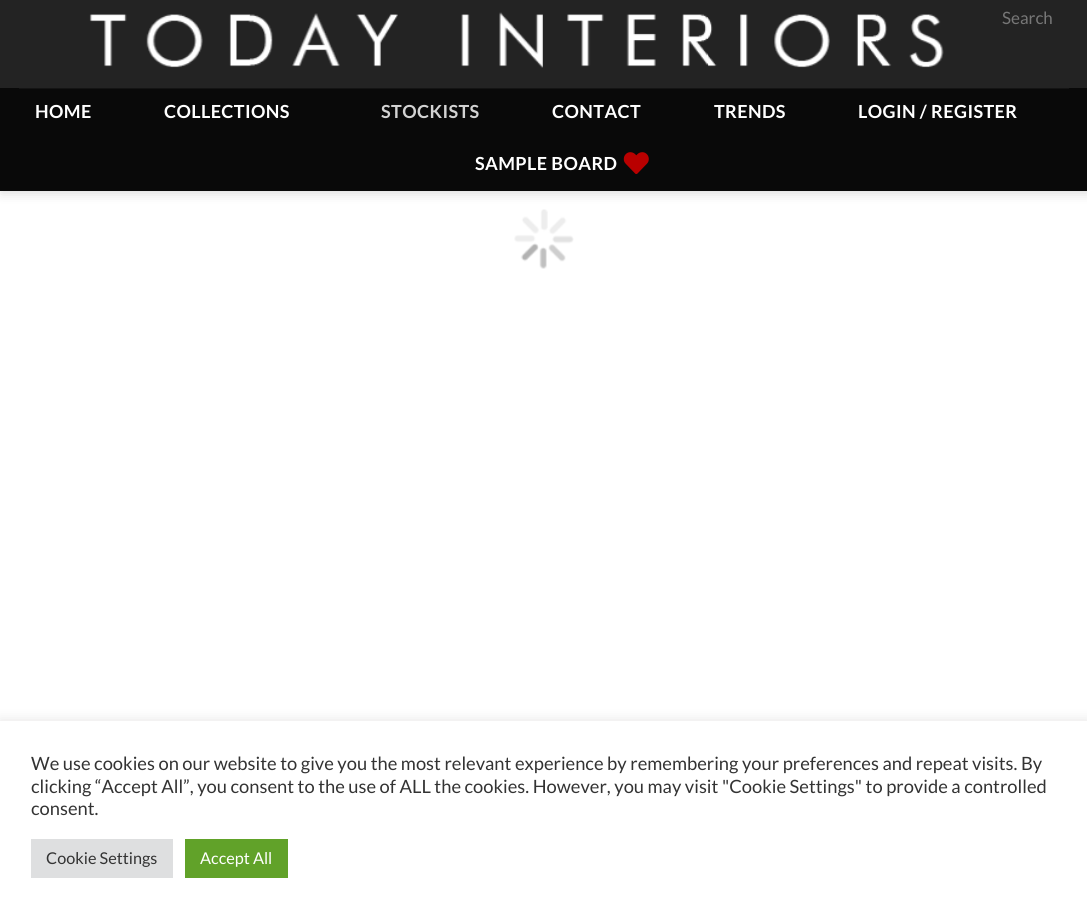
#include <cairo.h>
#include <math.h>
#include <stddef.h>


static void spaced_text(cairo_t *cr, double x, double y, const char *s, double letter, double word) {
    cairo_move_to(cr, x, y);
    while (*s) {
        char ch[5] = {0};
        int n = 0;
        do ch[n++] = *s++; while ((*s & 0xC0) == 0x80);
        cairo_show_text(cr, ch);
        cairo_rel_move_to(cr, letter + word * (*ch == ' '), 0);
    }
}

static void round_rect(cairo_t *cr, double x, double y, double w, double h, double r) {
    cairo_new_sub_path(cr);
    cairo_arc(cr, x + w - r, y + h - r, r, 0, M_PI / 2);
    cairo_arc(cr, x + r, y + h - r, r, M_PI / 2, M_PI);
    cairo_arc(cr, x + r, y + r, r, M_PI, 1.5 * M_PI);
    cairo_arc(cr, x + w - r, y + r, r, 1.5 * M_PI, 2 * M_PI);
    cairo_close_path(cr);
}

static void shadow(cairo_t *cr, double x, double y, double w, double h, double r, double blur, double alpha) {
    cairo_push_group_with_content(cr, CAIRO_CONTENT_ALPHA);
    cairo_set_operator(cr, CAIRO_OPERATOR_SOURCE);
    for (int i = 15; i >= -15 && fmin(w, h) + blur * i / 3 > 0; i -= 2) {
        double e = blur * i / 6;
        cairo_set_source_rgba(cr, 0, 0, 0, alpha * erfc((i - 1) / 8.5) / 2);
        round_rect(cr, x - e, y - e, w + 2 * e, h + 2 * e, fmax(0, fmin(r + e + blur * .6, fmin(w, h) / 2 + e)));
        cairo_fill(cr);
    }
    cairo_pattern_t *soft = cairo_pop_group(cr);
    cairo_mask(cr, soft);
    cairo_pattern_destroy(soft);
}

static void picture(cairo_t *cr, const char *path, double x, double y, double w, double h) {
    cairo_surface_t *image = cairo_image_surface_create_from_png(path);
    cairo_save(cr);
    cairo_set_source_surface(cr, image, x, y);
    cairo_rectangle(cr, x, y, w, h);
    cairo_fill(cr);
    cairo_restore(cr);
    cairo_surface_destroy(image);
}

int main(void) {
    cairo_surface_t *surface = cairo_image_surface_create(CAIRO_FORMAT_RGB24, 1087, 915);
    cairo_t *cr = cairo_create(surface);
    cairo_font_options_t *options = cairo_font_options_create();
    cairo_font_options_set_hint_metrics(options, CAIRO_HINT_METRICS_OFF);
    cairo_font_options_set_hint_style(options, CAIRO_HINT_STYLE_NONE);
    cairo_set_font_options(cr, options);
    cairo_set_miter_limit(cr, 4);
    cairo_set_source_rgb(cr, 1, 1, 1);
    cairo_paint(cr);
    cairo_set_source_rgb(cr, 0, 0, 0);
    shadow(cr, 1, 1, 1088, 192, 0, 6, 0.15);
    cairo_set_source_rgb(cr, 0.137, 0.137, 0.137);
    cairo_rectangle(cr, 0, 0, 1087, 88);
    cairo_fill(cr);
    picture(cr, "img1.png", 89, 12, 855, 56);
    cairo_select_font_face(cr, "Lato", CAIRO_FONT_SLANT_NORMAL, CAIRO_FONT_WEIGHT_NORMAL);
    cairo_set_font_size(cr, 17);
    cairo_set_source_rgb(cr, 0.467, 0.467, 0.467);
    cairo_move_to(cr, 1002, 24);
    cairo_show_text(cr, "Search");
    cairo_set_source_rgb(cr, 0.039, 0.039, 0.039);
    cairo_rectangle(cr, 0, 88, 1087, 103);
    cairo_fill(cr);
    cairo_set_source_rgb(cr, 0.082, 0.082, 0.082);
    cairo_rectangle(cr, 19, 88, 1050, 1);
    cairo_fill(cr);
    cairo_select_font_face(cr, "Lato", CAIRO_FONT_SLANT_NORMAL, CAIRO_FONT_WEIGHT_BOLD);
    cairo_set_font_size(cr, 18);
    cairo_set_source_rgb(cr, 1, 1, 1);
    spaced_text(cr, 35, 118, "HOME", 0.4, 0);
    spaced_text(cr, 164, 118, "COLLECTIONS", 0.4, 0);
    cairo_set_source_rgb(cr, 0.827, 0.827, 0.827);
    spaced_text(cr, 381, 118, "STOCKISTS", 0.4, 0);
    cairo_set_source_rgb(cr, 1, 1, 1);
    spaced_text(cr, 552, 118, "CONTACT", 0.4, 0);
    spaced_text(cr, 714, 118, "TRENDS", 0.4, 0);
    spaced_text(cr, 858, 118, "LOGIN / REGISTER", 0.4, 0);
    spaced_text(cr, 475, 170, "SAMPLE BOARD", 0.4, 0);
    picture(cr, "img2.png", 623, 152, 26, 22);
    picture(cr, "img3.png", 514, 209, 60, 60);
    cairo_set_source_rgb(cr, 0.675, 0.671, 0.671);
    shadow(cr, 0, 720, 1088, 194, 0, 6, 0.3);
    cairo_set_source_rgb(cr, 1, 1, 1);
    cairo_rectangle(cr, 0, 721, 1087, 194);
    cairo_fill(cr);
    cairo_select_font_face(cr, "Lato", CAIRO_FONT_SLANT_NORMAL, CAIRO_FONT_WEIGHT_NORMAL);
    cairo_set_font_size(cr, 18.33);
    cairo_set_source_rgb(cr, 0.2, 0.2, 0.2);
    cairo_move_to(cr, 31, 770);
    cairo_show_text(cr, "We use cookies on our website to give you the most relevant experience by remembering your preferences and repeat visits. By");
    cairo_move_to(cr, 31, 793);
    cairo_show_text(cr, "clicking “Accept All”, you consent to the use of ALL the cookies. However, you may visit \"Cookie Settings\" to provide a controlled");
    cairo_move_to(cr, 31, 815);
    cairo_show_text(cr, "consent.");
    cairo_set_source_rgb(cr, 0.871, 0.875, 0.878);
    cairo_rectangle(cr, 31, 839, 142, 39);
    cairo_fill(cr);
    cairo_set_font_size(cr, 16.25);
    cairo_set_source_rgb(cr, 0.2, 0.2, 0.2);
    cairo_move_to(cr, 46, 864);
    cairo_show_text(cr, "Cookie Settings");
    cairo_set_source_rgb(cr, 0.38, 0.635, 0.161);
    cairo_rectangle(cr, 185, 839, 103, 39);
    cairo_fill(cr);
    cairo_set_source_rgb(cr, 1, 1, 1);
    cairo_move_to(cr, 200, 864);
    cairo_show_text(cr, "Accept All");
    cairo_surface_write_to_png(surface, "page.png");
    cairo_font_options_destroy(options);
    cairo_destroy(cr);
    cairo_surface_destroy(surface);
    return 0;
}
